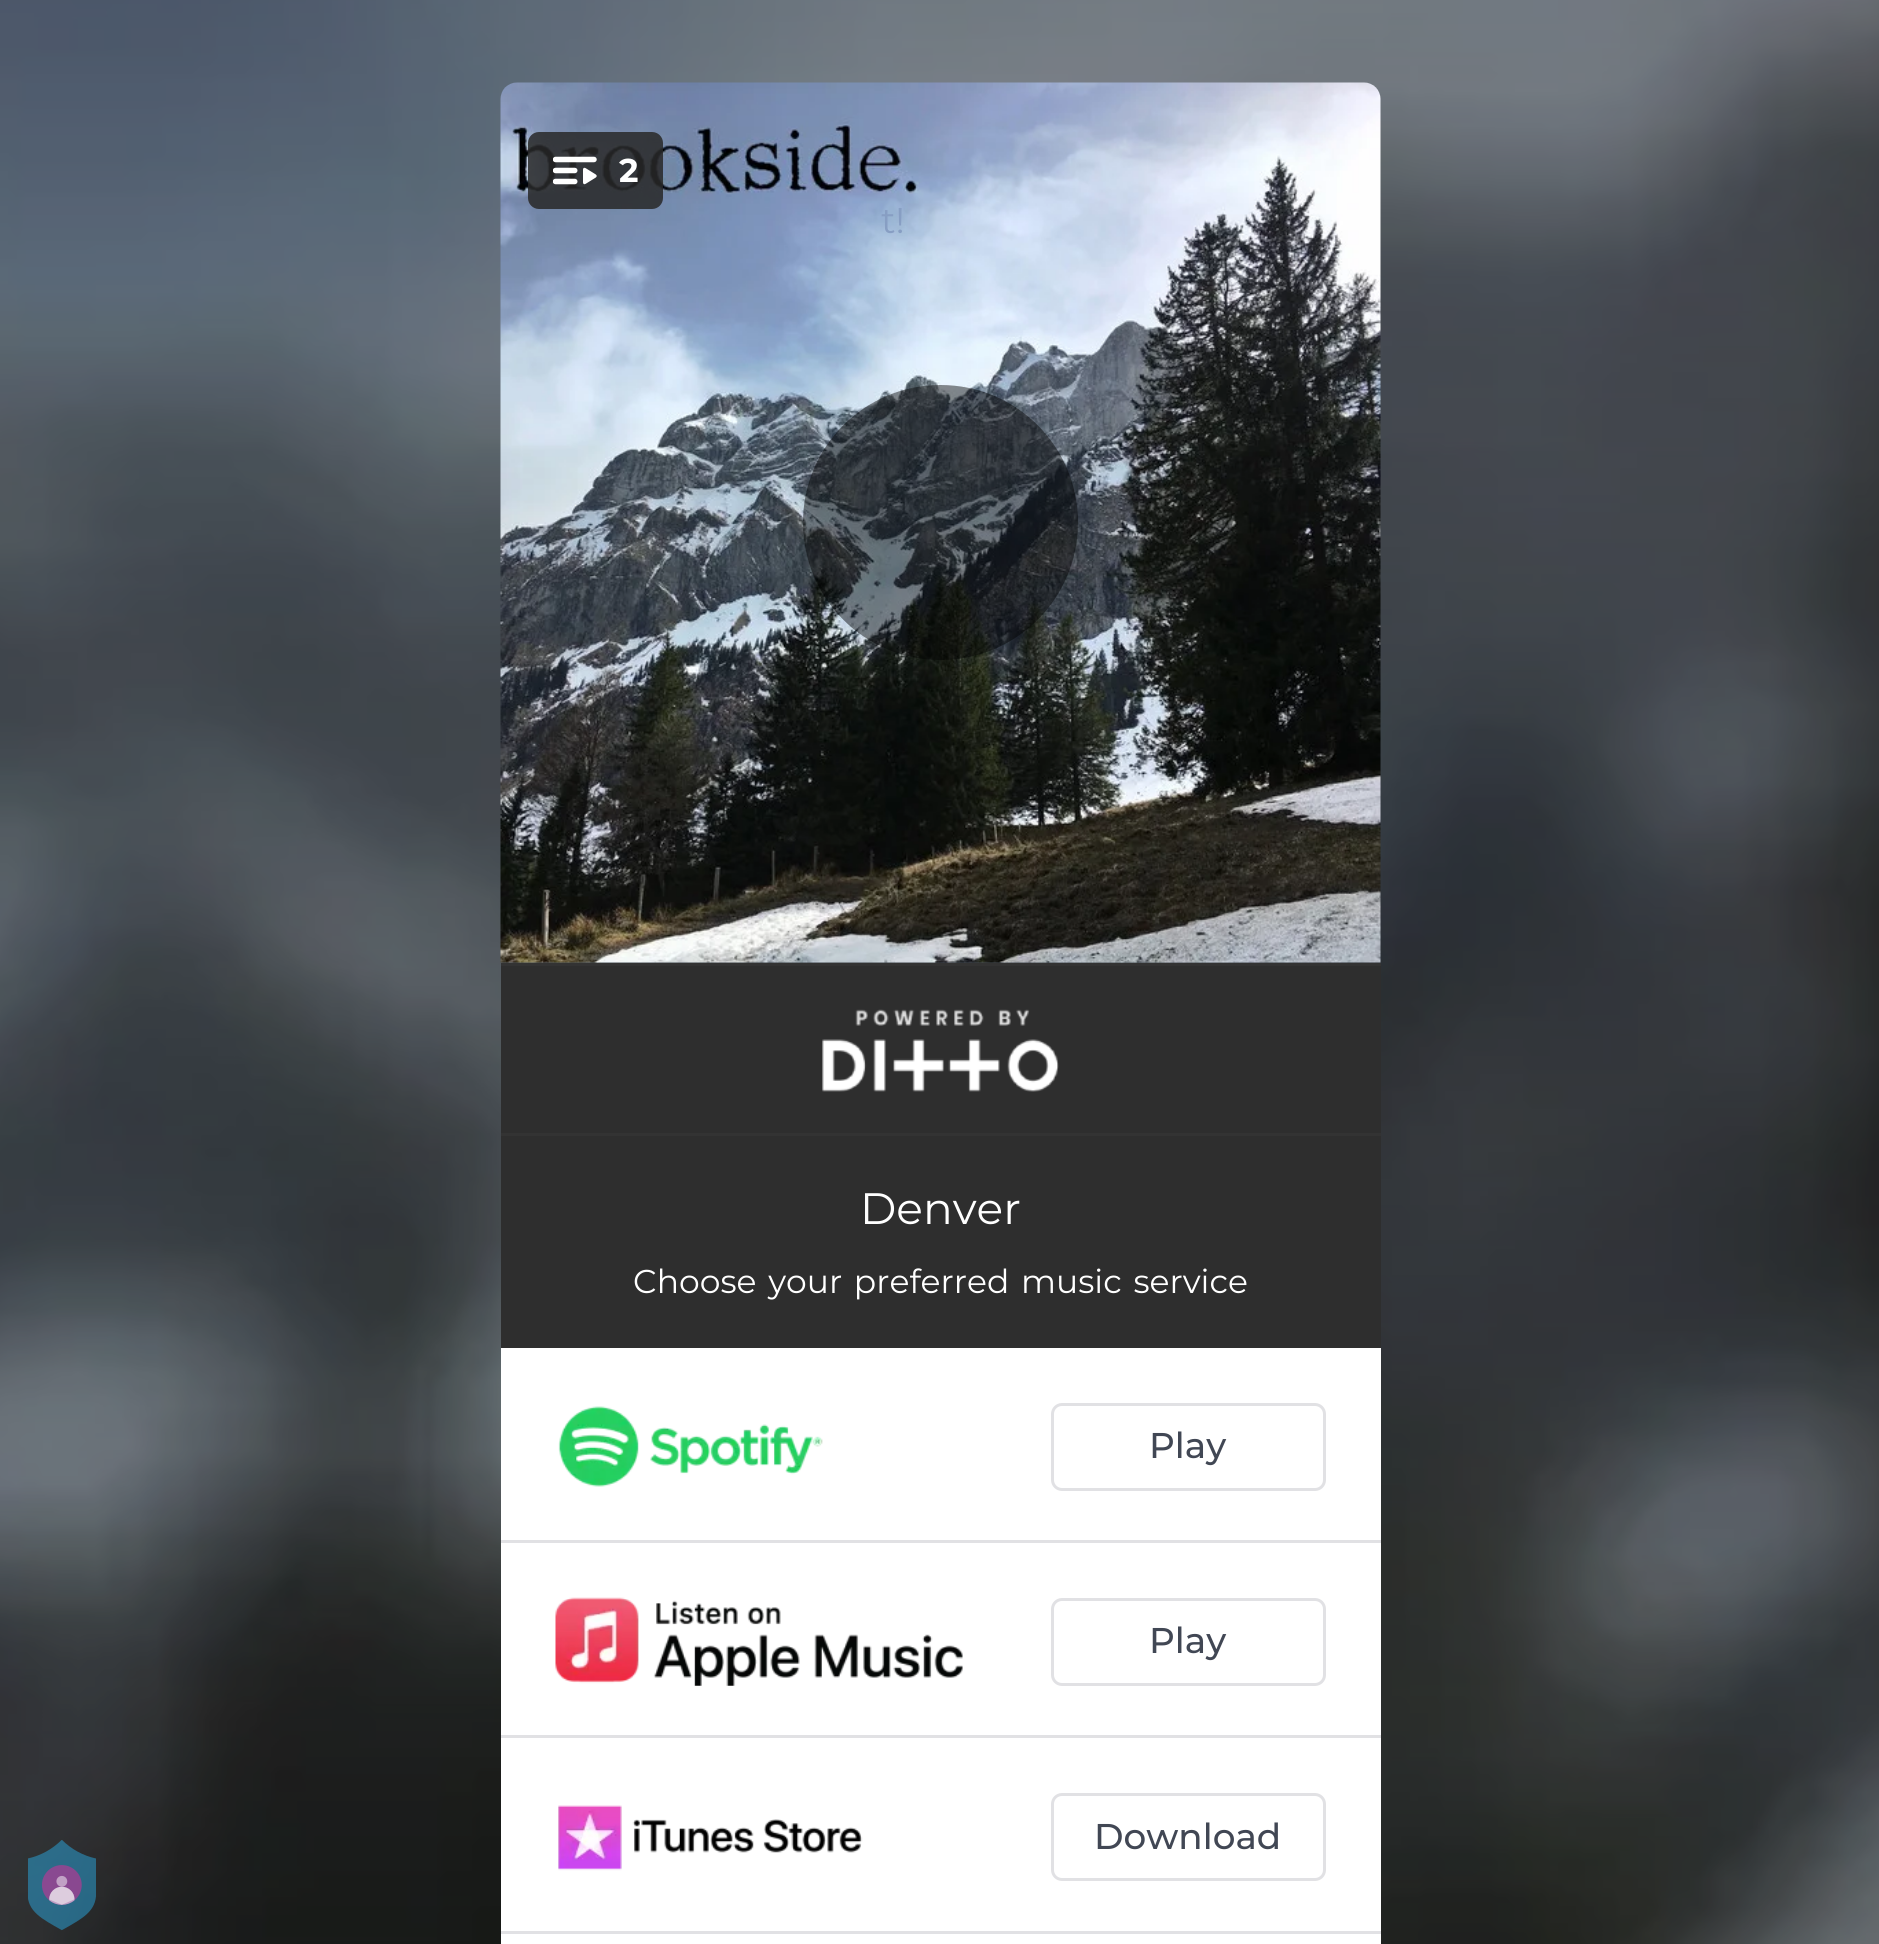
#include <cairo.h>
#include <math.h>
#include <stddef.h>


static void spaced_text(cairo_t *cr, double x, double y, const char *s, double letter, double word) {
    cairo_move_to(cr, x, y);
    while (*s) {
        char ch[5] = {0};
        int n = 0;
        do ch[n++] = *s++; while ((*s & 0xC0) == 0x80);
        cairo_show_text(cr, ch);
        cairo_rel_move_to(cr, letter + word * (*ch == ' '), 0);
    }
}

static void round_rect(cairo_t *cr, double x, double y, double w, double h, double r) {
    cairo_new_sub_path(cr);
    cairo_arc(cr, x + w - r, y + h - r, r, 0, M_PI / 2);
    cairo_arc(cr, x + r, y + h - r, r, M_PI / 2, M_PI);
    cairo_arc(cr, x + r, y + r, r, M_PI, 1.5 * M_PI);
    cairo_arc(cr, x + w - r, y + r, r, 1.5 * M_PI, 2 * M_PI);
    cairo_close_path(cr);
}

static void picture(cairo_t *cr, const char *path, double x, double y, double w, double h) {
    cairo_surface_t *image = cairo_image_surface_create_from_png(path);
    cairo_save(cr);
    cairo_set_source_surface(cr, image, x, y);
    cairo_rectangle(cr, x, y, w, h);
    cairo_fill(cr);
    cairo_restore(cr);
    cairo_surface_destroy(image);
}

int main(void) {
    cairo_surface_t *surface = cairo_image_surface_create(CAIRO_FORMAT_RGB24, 1879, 1944);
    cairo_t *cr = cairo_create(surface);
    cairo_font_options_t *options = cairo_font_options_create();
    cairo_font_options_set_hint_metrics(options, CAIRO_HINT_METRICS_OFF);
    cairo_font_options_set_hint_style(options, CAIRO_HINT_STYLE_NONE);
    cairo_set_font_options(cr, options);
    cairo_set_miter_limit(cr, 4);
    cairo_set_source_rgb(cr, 1, 1, 1);
    cairo_paint(cr);
    picture(cr, "img1.png", 0, 0, 1879, 1944);
    picture(cr, "img2.png", 500, 82, 881, 881);
    cairo_set_source_rgba(cr, 0.157, 0.157, 0.157, 0.85);
    round_rect(cr, 528, 132, 135, 77, 11);
    cairo_fill(cr);
    picture(cr, "img3.png", 553, 156, 44, 29);
    cairo_select_font_face(cr, "Montserrat", CAIRO_FONT_SLANT_NORMAL, CAIRO_FONT_WEIGHT_BOLD);
    cairo_set_font_size(cr, 33);
    cairo_set_source_rgb(cr, 1, 1, 1);
    cairo_move_to(cr, 619, 182);
    cairo_show_text(cr, "2");
    cairo_set_source_rgba(cr, 0, 0, 0, 0.45);
    cairo_new_path(cr);
    cairo_arc(cr, 940.5, 522.5, 137.5, 0, 2 * M_PI);
    cairo_fill(cr);
    cairo_select_font_face(cr, "Montserrat", CAIRO_FONT_SLANT_NORMAL, CAIRO_FONT_WEIGHT_NORMAL);
    cairo_set_font_size(cr, 35.75);
    cairo_set_source_rgb(cr, 0.529, 0.62, 0.765);
    spaced_text(cr, 881, 233, "t!", 0, 3);
    cairo_set_source_rgb(cr, 0.18, 0.18, 0.18);
    cairo_rectangle(cr, 501, 966, 880, 167);
    cairo_fill(cr);
    cairo_set_source_rgb(cr, 0.2, 0.2, 0.2);
    cairo_rectangle(cr, 501, 963, 880, 3);
    cairo_fill(cr);
    cairo_rectangle(cr, 501, 1133, 880, 3);
    cairo_fill(cr);
    picture(cr, "img4.png", 822, 1009, 237, 83);
    cairo_set_source_rgb(cr, 0.18, 0.18, 0.18);
    cairo_rectangle(cr, 501, 1136, 880, 212);
    cairo_fill(cr);
    cairo_set_font_size(cr, 44);
    cairo_set_source_rgb(cr, 1, 1, 1);
    cairo_move_to(cr, 860, 1224);
    cairo_show_text(cr, "Denver");
    cairo_set_font_size(cr, 33);
    spaced_text(cr, 633, 1293, "Choose your preferred music service", 0, 3);
    cairo_rectangle(cr, 501, 1348, 880, 596);
    cairo_fill(cr);
    cairo_set_source_rgb(cr, 0.882, 0.882, 0.894);
    cairo_rectangle(cr, 501, 1540, 880, 3);
    cairo_fill(cr);
    picture(cr, "img5.png", 558, 1406, 265, 81);
    round_rect(cr, 1052.5, 1404.5, 272, 85, 9.5);
    cairo_set_line_width(cr, 3);
    cairo_stroke(cr);
    cairo_select_font_face(cr, "Montserrat Medium", CAIRO_FONT_SLANT_NORMAL, CAIRO_FONT_WEIGHT_NORMAL);
    cairo_set_font_size(cr, 35.75);
    cairo_set_source_rgb(cr, 0.255, 0.278, 0.329);
    cairo_move_to(cr, 1149, 1458);
    cairo_show_text(cr, "Play");
    cairo_set_source_rgb(cr, 0.882, 0.882, 0.894);
    cairo_rectangle(cr, 501, 1735, 880, 3);
    cairo_fill(cr);
    picture(cr, "img6.png", 555, 1597, 408, 89);
    round_rect(cr, 1052.5, 1599.5, 272, 85, 9.5);
    cairo_stroke(cr);
    cairo_set_source_rgb(cr, 0.255, 0.278, 0.329);
    cairo_move_to(cr, 1149, 1653);
    cairo_show_text(cr, "Play");
    cairo_set_source_rgb(cr, 0.882, 0.882, 0.894);
    cairo_rectangle(cr, 501, 1931, 880, 3);
    cairo_fill(cr);
    picture(cr, "img7.png", 558, 1805, 305, 66);
    round_rect(cr, 1052.5, 1794.5, 272, 85, 9.5);
    cairo_stroke(cr);
    cairo_set_source_rgb(cr, 0.255, 0.278, 0.329);
    cairo_move_to(cr, 1094, 1849);
    cairo_show_text(cr, "Download");
    picture(cr, "img8.png", 28, 1840, 68, 91);
    cairo_surface_write_to_png(surface, "page.png");
    cairo_font_options_destroy(options);
    cairo_destroy(cr);
    cairo_surface_destroy(surface);
    return 0;
}
